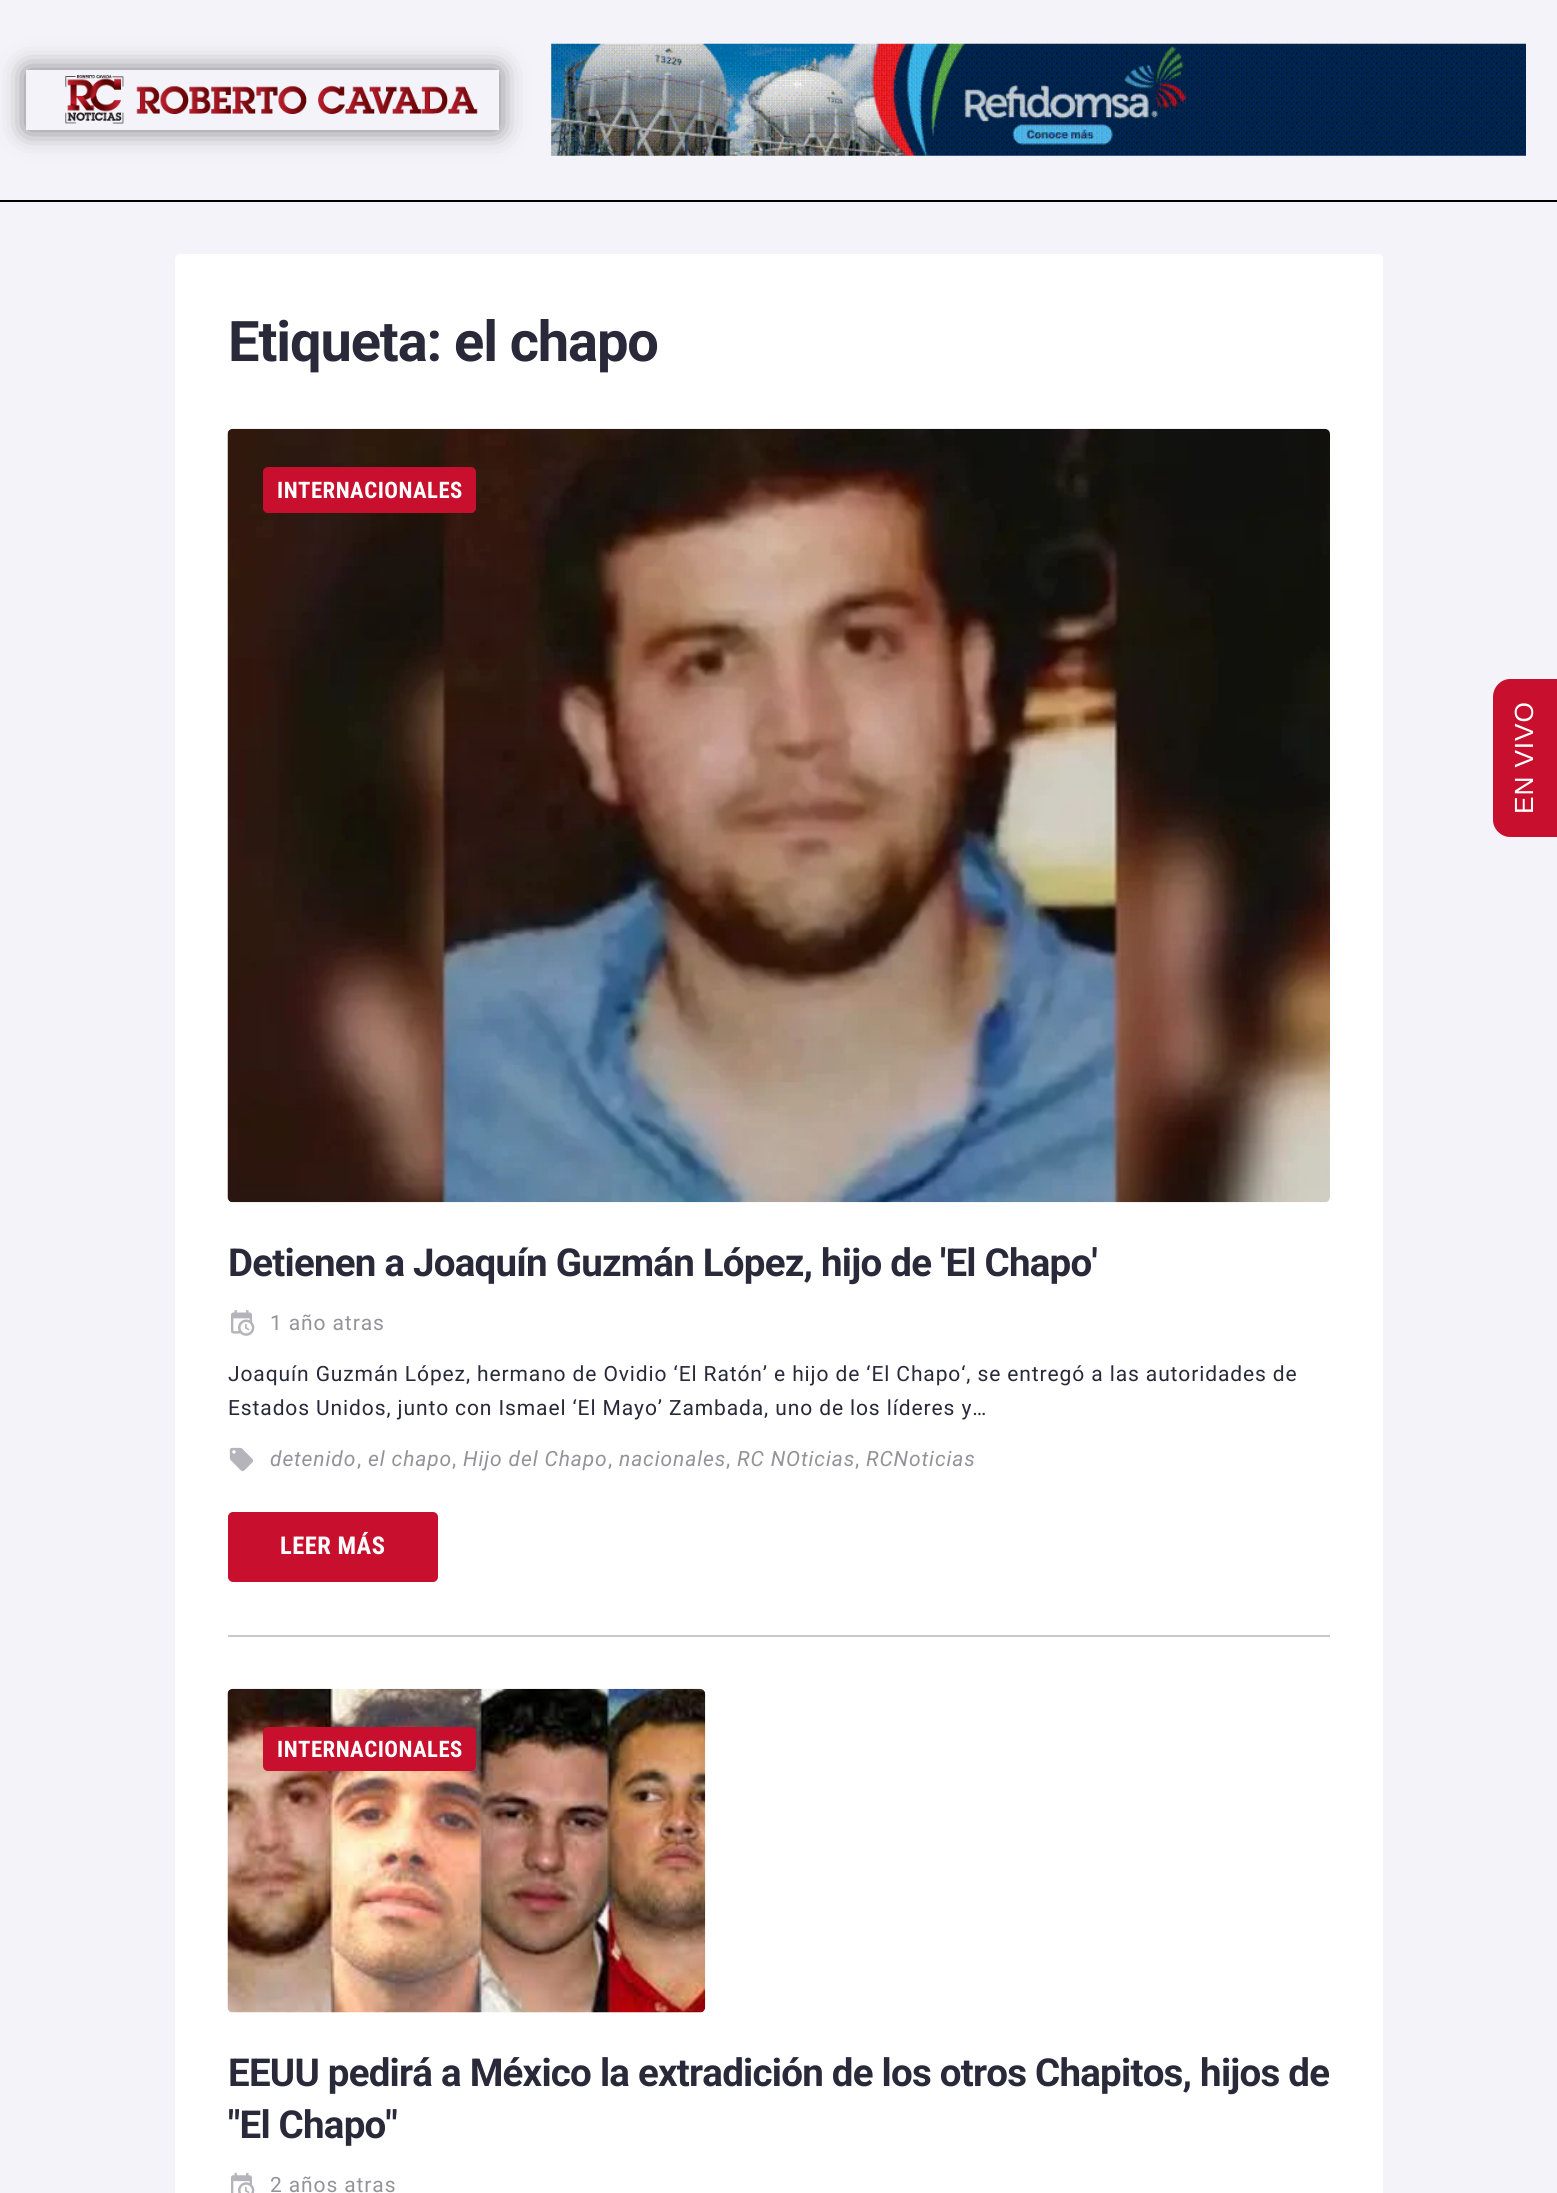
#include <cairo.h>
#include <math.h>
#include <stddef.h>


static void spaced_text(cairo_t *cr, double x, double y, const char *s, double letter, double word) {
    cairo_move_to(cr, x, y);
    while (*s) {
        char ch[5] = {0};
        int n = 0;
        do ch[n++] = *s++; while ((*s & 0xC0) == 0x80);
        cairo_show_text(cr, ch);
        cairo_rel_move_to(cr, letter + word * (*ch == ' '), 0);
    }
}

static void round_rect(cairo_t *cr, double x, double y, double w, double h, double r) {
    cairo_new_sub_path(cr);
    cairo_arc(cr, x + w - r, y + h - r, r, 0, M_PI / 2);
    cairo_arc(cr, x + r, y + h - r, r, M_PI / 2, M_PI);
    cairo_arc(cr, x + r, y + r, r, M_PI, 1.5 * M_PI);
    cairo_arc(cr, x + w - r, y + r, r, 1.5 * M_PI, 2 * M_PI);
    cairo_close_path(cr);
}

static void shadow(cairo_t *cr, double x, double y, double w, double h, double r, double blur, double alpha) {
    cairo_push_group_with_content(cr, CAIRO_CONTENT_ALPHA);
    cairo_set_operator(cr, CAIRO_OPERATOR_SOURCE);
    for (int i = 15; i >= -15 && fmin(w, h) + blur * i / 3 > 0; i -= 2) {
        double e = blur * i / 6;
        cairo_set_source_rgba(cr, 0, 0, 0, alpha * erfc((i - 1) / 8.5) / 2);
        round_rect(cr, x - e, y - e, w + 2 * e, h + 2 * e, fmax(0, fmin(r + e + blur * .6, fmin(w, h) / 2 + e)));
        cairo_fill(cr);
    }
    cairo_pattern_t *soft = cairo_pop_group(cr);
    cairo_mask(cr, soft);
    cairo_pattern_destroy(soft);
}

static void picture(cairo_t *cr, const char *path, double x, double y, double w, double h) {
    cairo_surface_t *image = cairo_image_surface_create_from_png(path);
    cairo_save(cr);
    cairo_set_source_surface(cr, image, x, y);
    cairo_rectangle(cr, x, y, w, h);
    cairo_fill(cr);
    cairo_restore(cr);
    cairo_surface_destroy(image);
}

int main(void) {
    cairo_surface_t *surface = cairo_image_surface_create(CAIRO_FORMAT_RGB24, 1557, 2193);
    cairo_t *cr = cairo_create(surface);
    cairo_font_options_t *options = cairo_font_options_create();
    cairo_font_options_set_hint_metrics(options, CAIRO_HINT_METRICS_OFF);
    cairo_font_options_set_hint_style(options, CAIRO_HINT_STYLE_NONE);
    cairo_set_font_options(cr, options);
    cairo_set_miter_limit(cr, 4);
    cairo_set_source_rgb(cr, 0.953, 0.953, 0.976);
    cairo_paint(cr);
    cairo_set_source_rgb(cr, 0, 0, 0);
    shadow(cr, 26, 70, 473, 60, 0, 13, 0.5);
    cairo_set_source_rgb(cr, 0.953, 0.953, 0.976);
    cairo_rectangle(cr, 26, 70, 473, 60);
    cairo_fill(cr);
    picture(cr, "img1.png", 65, 75, 413, 49);
    picture(cr, "img2.png", 551, 43, 975, 113);
    cairo_set_source_rgb(cr, 0, 0, 0);
    cairo_rectangle(cr, 0, 200, 1557, 2);
    cairo_fill(cr);
    cairo_set_source_rgb(cr, 1, 1, 1);
    round_rect(cr, 175, 254, 1208, 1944, 5);
    cairo_fill(cr);
    cairo_select_font_face(cr, "Roboto", CAIRO_FONT_SLANT_NORMAL, CAIRO_FONT_WEIGHT_BOLD);
    cairo_set_font_size(cr, 56);
    cairo_set_source_rgb(cr, 0.161, 0.161, 0.227);
    spaced_text(cr, 228, 361, "Etiqueta: el chapo", -1.1, 0);
    picture(cr, "img3.png", 227, 428, 1103, 775);
    cairo_set_source_rgb(cr, 0.784, 0.063, 0.18);
    round_rect(cr, 263, 467, 213, 46, 5);
    cairo_fill(cr);
    cairo_select_font_face(cr, "Roboto Condensed", CAIRO_FONT_SLANT_NORMAL, CAIRO_FONT_WEIGHT_BOLD);
    cairo_set_font_size(cr, 22.75);
    cairo_set_source_rgb(cr, 1, 1, 1);
    spaced_text(cr, 277, 498, "INTERNACIONALES", 0.5, 0);
    cairo_select_font_face(cr, "Roboto", CAIRO_FONT_SLANT_NORMAL, CAIRO_FONT_WEIGHT_BOLD);
    cairo_set_font_size(cr, 38.5);
    cairo_set_source_rgb(cr, 0.161, 0.161, 0.227);
    spaced_text(cr, 228, 1276, "Detienen a Joaquín Guzmán López, hijo de 'El Chapo'", -0.77, 0);
    picture(cr, "img4.png", 231, 1310, 24, 26);
    cairo_select_font_face(cr, "Roboto", CAIRO_FONT_SLANT_NORMAL, CAIRO_FONT_WEIGHT_NORMAL);
    cairo_set_font_size(cr, 21);
    cairo_set_source_rgb(cr, 0.576, 0.576, 0.6);
    spaced_text(cr, 270, 1330, "1 año atras", 0.89, 0);
    cairo_set_source_rgb(cr, 0.161, 0.161, 0.227);
    spaced_text(cr, 228, 1381, "Joaquín Guzmán López, hermano de Ovidio ‘El Ratón’ e hijo de ‘El Chapo‘, se entregó a las autoridades de", 0.89, 0);
    spaced_text(cr, 228, 1415, "Estados Unidos, junto con Ismael ‘El Mayo’ Zambada, uno de los líderes y…", 0.89, 0);
    picture(cr, "img5.png", 229, 1447, 25, 25);
    cairo_select_font_face(cr, "Roboto", CAIRO_FONT_SLANT_ITALIC, CAIRO_FONT_WEIGHT_NORMAL);
    cairo_set_source_rgb(cr, 0.576, 0.576, 0.6);
    spaced_text(cr, 270, 1466, "detenido", 0.89, 0);
    cairo_select_font_face(cr, "Roboto", CAIRO_FONT_SLANT_NORMAL, CAIRO_FONT_WEIGHT_NORMAL);
    spaced_text(cr, 357, 1466, ",", 0.89, 0);
    cairo_select_font_face(cr, "Roboto", CAIRO_FONT_SLANT_ITALIC, CAIRO_FONT_WEIGHT_NORMAL);
    spaced_text(cr, 368, 1466, "el chapo", 0.89, 0);
    cairo_select_font_face(cr, "Roboto", CAIRO_FONT_SLANT_NORMAL, CAIRO_FONT_WEIGHT_NORMAL);
    spaced_text(cr, 452, 1466, ",", 0.89, 0);
    cairo_select_font_face(cr, "Roboto", CAIRO_FONT_SLANT_ITALIC, CAIRO_FONT_WEIGHT_NORMAL);
    spaced_text(cr, 463, 1466, "Hijo del Chapo", 0.89, 0);
    cairo_select_font_face(cr, "Roboto", CAIRO_FONT_SLANT_NORMAL, CAIRO_FONT_WEIGHT_NORMAL);
    spaced_text(cr, 608, 1466, ",", 0.89, 0);
    cairo_select_font_face(cr, "Roboto", CAIRO_FONT_SLANT_ITALIC, CAIRO_FONT_WEIGHT_NORMAL);
    spaced_text(cr, 619, 1466, "nacionales", 0.89, 0);
    cairo_select_font_face(cr, "Roboto", CAIRO_FONT_SLANT_NORMAL, CAIRO_FONT_WEIGHT_NORMAL);
    spaced_text(cr, 726, 1466, ",", 0.89, 0);
    cairo_select_font_face(cr, "Roboto", CAIRO_FONT_SLANT_ITALIC, CAIRO_FONT_WEIGHT_NORMAL);
    spaced_text(cr, 737, 1466, "RC NOticias", 0.89, 0);
    cairo_select_font_face(cr, "Roboto", CAIRO_FONT_SLANT_NORMAL, CAIRO_FONT_WEIGHT_NORMAL);
    spaced_text(cr, 855, 1466, ",", 0.89, 0);
    cairo_select_font_face(cr, "Roboto", CAIRO_FONT_SLANT_ITALIC, CAIRO_FONT_WEIGHT_NORMAL);
    spaced_text(cr, 866, 1466, "RCNoticias", 0.89, 0);
    cairo_set_source_rgb(cr, 0.784, 0.063, 0.18);
    round_rect(cr, 228, 1512, 210, 70, 5);
    cairo_fill(cr);
    cairo_select_font_face(cr, "Roboto Condensed", CAIRO_FONT_SLANT_NORMAL, CAIRO_FONT_WEIGHT_BOLD);
    cairo_set_font_size(cr, 24.5);
    cairo_set_source_rgb(cr, 1, 1, 1);
    spaced_text(cr, 280, 1554, "LEER MÁS", 0.5, 0);
    cairo_set_source_rgb(cr, 0.784, 0.784, 0.808);
    cairo_rectangle(cr, 228, 1635, 1102, 2);
    cairo_fill(cr);
    picture(cr, "img6.png", 227, 1688, 479, 325);
    cairo_set_source_rgb(cr, 0.784, 0.063, 0.18);
    round_rect(cr, 263, 1727, 213, 44, 5);
    cairo_fill(cr);
    cairo_set_font_size(cr, 22.75);
    cairo_set_source_rgb(cr, 1, 1, 1);
    spaced_text(cr, 277, 1757, "INTERNACIONALES", 0.5, 0);
    cairo_select_font_face(cr, "Roboto", CAIRO_FONT_SLANT_NORMAL, CAIRO_FONT_WEIGHT_BOLD);
    cairo_set_font_size(cr, 38.5);
    cairo_set_source_rgb(cr, 0.161, 0.161, 0.227);
    spaced_text(cr, 228, 2086, "EEUU pedirá a México la extradición de los otros Chapitos, hijos de", -0.77, 0);
    spaced_text(cr, 228, 2138, "\"El Chapo\"", -0.77, 0);
    picture(cr, "img7.png", 231, 2172, 24, 21);
    cairo_select_font_face(cr, "Roboto", CAIRO_FONT_SLANT_NORMAL, CAIRO_FONT_WEIGHT_NORMAL);
    cairo_set_font_size(cr, 21);
    cairo_set_source_rgb(cr, 0.576, 0.576, 0.6);
    spaced_text(cr, 270, 2192, "2 años atras", 0.89, 0);
    cairo_set_source_rgb(cr, 0.784, 0.063, 0.18);
    cairo_new_path(cr);
    cairo_move_to(cr, 1493, 820);
    cairo_line_to(cr, 1493, 697);
    cairo_curve_to(cr, 1493, 687, 1501, 679, 1510, 679);
    cairo_line_to(cr, 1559, 679);
    cairo_line_to(cr, 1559, 837);
    cairo_line_to(cr, 1510, 837);
    cairo_curve_to(cr, 1501, 837, 1493, 829, 1493, 820);
    cairo_close_path(cr);
    cairo_fill(cr);
    cairo_select_font_face(cr, "Liberation Sans", CAIRO_FONT_SLANT_NORMAL, CAIRO_FONT_WEIGHT_NORMAL);
    cairo_set_font_size(cr, 26.25);
    cairo_set_source_rgb(cr, 1, 1, 1);
    cairo_save(cr);
    cairo_translate(cr, 1533, 814);
    cairo_rotate(cr, -90 * M_PI / 180);
    spaced_text(cr, 0, 0, "EN VIVO", 0.89, 0);
    cairo_restore(cr);
    cairo_surface_write_to_png(surface, "page.png");
    cairo_font_options_destroy(options);
    cairo_destroy(cr);
    cairo_surface_destroy(surface);
    return 0;
}
